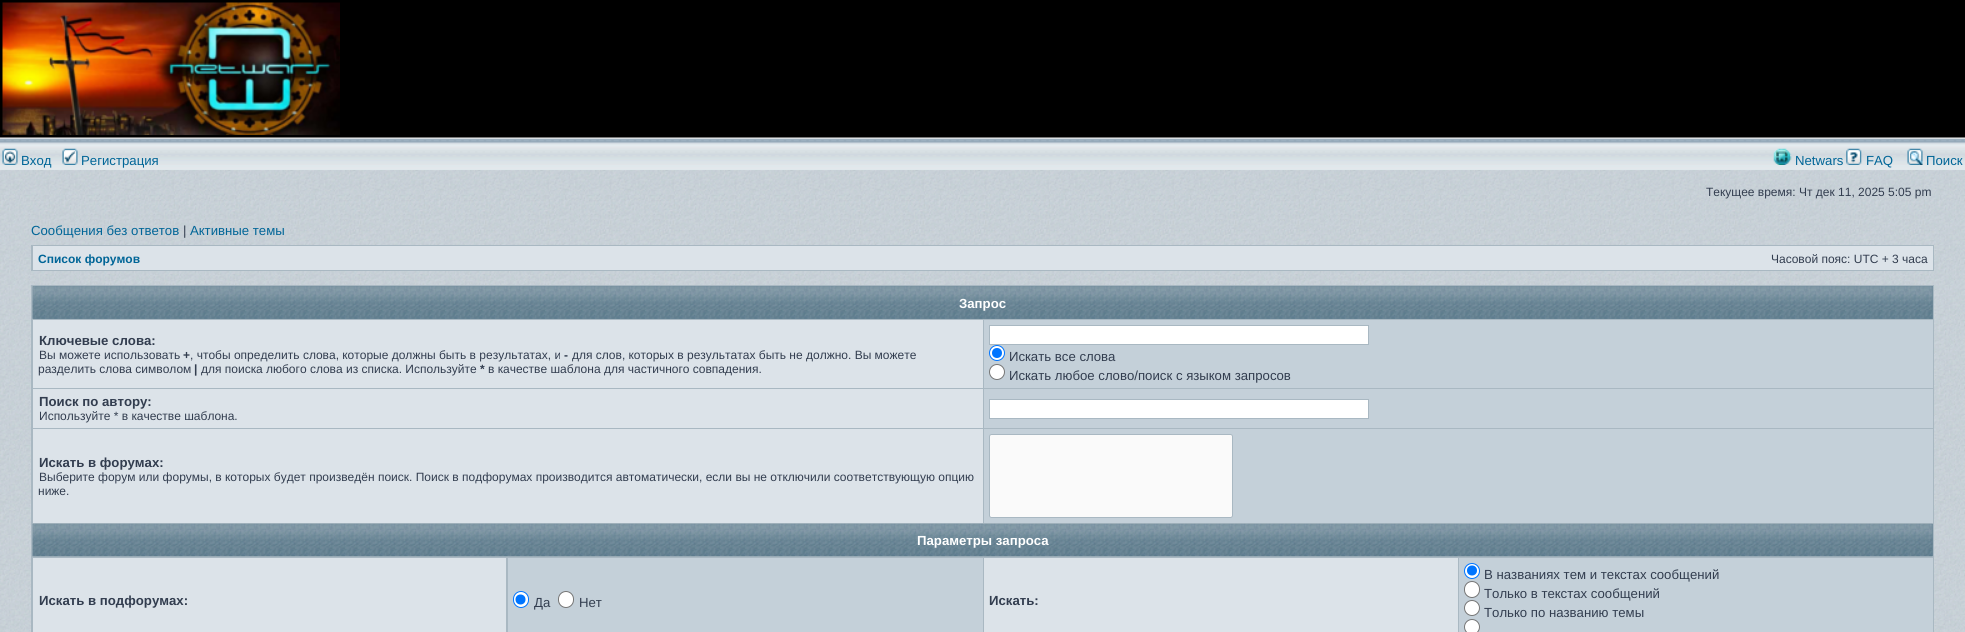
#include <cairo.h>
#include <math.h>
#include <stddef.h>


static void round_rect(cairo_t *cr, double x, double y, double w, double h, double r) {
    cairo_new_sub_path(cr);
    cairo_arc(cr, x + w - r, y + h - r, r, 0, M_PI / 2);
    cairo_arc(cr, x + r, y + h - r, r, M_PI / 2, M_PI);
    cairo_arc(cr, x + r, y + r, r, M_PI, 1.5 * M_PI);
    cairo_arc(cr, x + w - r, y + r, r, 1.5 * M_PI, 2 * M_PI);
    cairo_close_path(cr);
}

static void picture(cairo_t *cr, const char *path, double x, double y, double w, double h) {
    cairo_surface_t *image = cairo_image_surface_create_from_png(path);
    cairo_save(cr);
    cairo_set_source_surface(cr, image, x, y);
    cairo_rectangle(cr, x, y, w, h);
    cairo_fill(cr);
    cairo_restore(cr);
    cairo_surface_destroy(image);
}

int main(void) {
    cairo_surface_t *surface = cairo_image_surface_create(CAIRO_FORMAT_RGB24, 1965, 632);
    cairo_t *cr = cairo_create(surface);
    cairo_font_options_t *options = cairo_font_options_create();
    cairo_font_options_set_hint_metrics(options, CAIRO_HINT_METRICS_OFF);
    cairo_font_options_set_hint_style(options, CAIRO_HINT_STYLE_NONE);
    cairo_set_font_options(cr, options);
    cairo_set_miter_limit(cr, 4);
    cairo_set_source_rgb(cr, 1, 1, 1);
    cairo_paint(cr);
    picture(cr, "img1.png", 0, 170, 1965, 462);
    cairo_set_source_rgb(cr, 0, 0, 0);
    cairo_rectangle(cr, 0, 0, 1965, 138);
    cairo_fill(cr);
    picture(cr, "img2.png", 2, 2, 338, 133);
    picture(cr, "img3.png", 0, 137, 1965, 33);
    picture(cr, "img4.png", 2, 148, 16, 17);
    cairo_select_font_face(cr, "Liberation Sans", CAIRO_FONT_SLANT_NORMAL, CAIRO_FONT_WEIGHT_NORMAL);
    cairo_set_font_size(cr, 13.2);
    cairo_set_source_rgb(cr, 0, 0.396, 0.592);
    cairo_move_to(cr, 21, 165);
    cairo_show_text(cr, "Вход");
    picture(cr, "img5.png", 62, 148, 16, 17);
    cairo_move_to(cr, 81, 165);
    cairo_show_text(cr, "Регистрация");
    picture(cr, "img6.png", 1773, 148, 19, 17);
    cairo_move_to(cr, 1795, 165);
    cairo_show_text(cr, "Netwars");
    picture(cr, "img7.png", 1846, 148, 16, 17);
    cairo_move_to(cr, 1866, 165);
    cairo_show_text(cr, "FAQ");
    picture(cr, "img8.png", 1907, 148, 16, 17);
    cairo_move_to(cr, 1926, 165);
    cairo_show_text(cr, "Поиск");
    cairo_set_font_size(cr, 12);
    cairo_set_source_rgb(cr, 0.196, 0.239, 0.31);
    cairo_move_to(cr, 1706, 196);
    cairo_show_text(cr, "Текущее время: Чт дек 11, 2025 5:05 pm");
    cairo_set_font_size(cr, 13.2);
    cairo_set_source_rgb(cr, 0, 0.396, 0.592);
    cairo_move_to(cr, 31, 235);
    cairo_show_text(cr, "Сообщения без ответов");
    cairo_set_source_rgb(cr, 0.196, 0.239, 0.31);
    cairo_move_to(cr, 183, 235);
    cairo_show_text(cr, "|");
    cairo_set_source_rgb(cr, 0, 0.396, 0.592);
    cairo_move_to(cr, 190, 235);
    cairo_show_text(cr, "Активные темы");
    cairo_set_source_rgb(cr, 0.663, 0.722, 0.761);
    cairo_rectangle(cr, 31, 245, 1903, 26);
    cairo_fill(cr);
    cairo_set_source_rgb(cr, 0.863, 0.89, 0.914);
    cairo_rectangle(cr, 33, 246, 1900, 24);
    cairo_fill(cr);
    cairo_select_font_face(cr, "Liberation Sans", CAIRO_FONT_SLANT_NORMAL, CAIRO_FONT_WEIGHT_BOLD);
    cairo_set_font_size(cr, 12);
    cairo_set_source_rgb(cr, 0, 0.396, 0.592);
    cairo_move_to(cr, 38, 263);
    cairo_show_text(cr, "Список форумов");
    cairo_select_font_face(cr, "Liberation Sans", CAIRO_FONT_SLANT_NORMAL, CAIRO_FONT_WEIGHT_NORMAL);
    cairo_set_source_rgb(cr, 0.196, 0.239, 0.31);
    cairo_move_to(cr, 1771, 263);
    cairo_show_text(cr, "Часовой пояс: UTC + 3 часа");
    cairo_set_source_rgb(cr, 0.663, 0.722, 0.761);
    cairo_rectangle(cr, 31, 285, 1903, 347);
    cairo_fill(cr);
    cairo_set_source_rgb(cr, 0.424, 0.533, 0.596);
    cairo_rectangle(cr, 33, 286, 1900, 33);
    cairo_fill(cr);
    picture(cr, "img9.png", 32, 286, 1901, 33);
    cairo_select_font_face(cr, "Liberation Sans", CAIRO_FONT_SLANT_NORMAL, CAIRO_FONT_WEIGHT_BOLD);
    cairo_set_font_size(cr, 13.2);
    cairo_set_source_rgb(cr, 1, 1, 1);
    cairo_move_to(cr, 959, 308);
    cairo_show_text(cr, "Запрос");
    cairo_set_source_rgb(cr, 0.863, 0.89, 0.914);
    cairo_rectangle(cr, 33, 320, 950, 68);
    cairo_fill(cr);
    cairo_set_source_rgb(cr, 0.196, 0.239, 0.31);
    cairo_move_to(cr, 39, 345);
    cairo_show_text(cr, "Ключевые слова:");
    cairo_select_font_face(cr, "Liberation Sans", CAIRO_FONT_SLANT_NORMAL, CAIRO_FONT_WEIGHT_NORMAL);
    cairo_set_font_size(cr, 12);
    cairo_move_to(cr, 39, 359);
    cairo_show_text(cr, "Вы можете использовать");
    cairo_select_font_face(cr, "Liberation Sans", CAIRO_FONT_SLANT_NORMAL, CAIRO_FONT_WEIGHT_BOLD);
    cairo_move_to(cr, 183, 359);
    cairo_show_text(cr, "+");
    cairo_select_font_face(cr, "Liberation Sans", CAIRO_FONT_SLANT_NORMAL, CAIRO_FONT_WEIGHT_NORMAL);
    cairo_move_to(cr, 190, 359);
    cairo_show_text(cr, ", чтобы определить слова, которые должны быть в результатах, и");
    cairo_select_font_face(cr, "Liberation Sans", CAIRO_FONT_SLANT_NORMAL, CAIRO_FONT_WEIGHT_BOLD);
    cairo_move_to(cr, 564, 359);
    cairo_show_text(cr, "-");
    cairo_select_font_face(cr, "Liberation Sans", CAIRO_FONT_SLANT_NORMAL, CAIRO_FONT_WEIGHT_NORMAL);
    cairo_move_to(cr, 572, 359);
    cairo_show_text(cr, "для слов, которых в результатах быть не должно. Вы можете");
    cairo_move_to(cr, 38, 373);
    cairo_show_text(cr, "разделить слова символом");
    cairo_select_font_face(cr, "Liberation Sans", CAIRO_FONT_SLANT_NORMAL, CAIRO_FONT_WEIGHT_BOLD);
    cairo_move_to(cr, 194, 373);
    cairo_show_text(cr, "|");
    cairo_select_font_face(cr, "Liberation Sans", CAIRO_FONT_SLANT_NORMAL, CAIRO_FONT_WEIGHT_NORMAL);
    cairo_move_to(cr, 201, 373);
    cairo_show_text(cr, "для поиска любого слова из списка. Используйте");
    cairo_select_font_face(cr, "Liberation Sans", CAIRO_FONT_SLANT_NORMAL, CAIRO_FONT_WEIGHT_BOLD);
    cairo_move_to(cr, 480, 373);
    cairo_show_text(cr, "*");
    cairo_select_font_face(cr, "Liberation Sans", CAIRO_FONT_SLANT_NORMAL, CAIRO_FONT_WEIGHT_NORMAL);
    cairo_move_to(cr, 488, 373);
    cairo_show_text(cr, "в качестве шаблона для частичного совпадения.");
    cairo_set_source_rgb(cr, 0.769, 0.816, 0.851);
    cairo_rectangle(cr, 984, 320, 949, 68);
    cairo_fill(cr);
    cairo_set_source_rgb(cr, 1, 1, 1);
    cairo_rectangle(cr, 989.5, 325.5, 379, 19);
    cairo_fill_preserve(cr);
    cairo_set_source_rgb(cr, 0.663, 0.722, 0.761);
    cairo_set_line_width(cr, 1);
    cairo_stroke(cr);
    cairo_set_source_rgb(cr, 1, 1, 1);
    cairo_arc(cr, 997, 353, 7.5, 0, 2 * M_PI);
    cairo_fill_preserve(cr);
    cairo_set_source_rgb(cr, 0, 0.459, 1);
    cairo_stroke(cr);
    cairo_arc(cr, 997, 353, 5, 0, 2 * M_PI);
    cairo_fill(cr);
    cairo_set_font_size(cr, 13.2);
    cairo_set_source_rgb(cr, 0.196, 0.239, 0.31);
    cairo_move_to(cr, 1009, 361);
    cairo_show_text(cr, "Искать все слова");
    cairo_set_source_rgb(cr, 1, 1, 1);
    cairo_new_path(cr);
    cairo_arc(cr, 997, 372, 7.5, 0, 2 * M_PI);
    cairo_fill_preserve(cr);
    cairo_set_source_rgb(cr, 0.463, 0.463, 0.463);
    cairo_stroke(cr);
    cairo_set_source_rgb(cr, 0.196, 0.239, 0.31);
    cairo_move_to(cr, 1009, 380);
    cairo_show_text(cr, "Искать любое слово/поиск с языком запросов");
    cairo_set_source_rgb(cr, 0.863, 0.89, 0.914);
    cairo_rectangle(cr, 33, 389, 950, 39);
    cairo_fill(cr);
    cairo_select_font_face(cr, "Liberation Sans", CAIRO_FONT_SLANT_NORMAL, CAIRO_FONT_WEIGHT_BOLD);
    cairo_set_source_rgb(cr, 0.196, 0.239, 0.31);
    cairo_move_to(cr, 39, 406);
    cairo_show_text(cr, "Поиск по автору:");
    cairo_select_font_face(cr, "Liberation Sans", CAIRO_FONT_SLANT_NORMAL, CAIRO_FONT_WEIGHT_NORMAL);
    cairo_set_font_size(cr, 12);
    cairo_move_to(cr, 39, 420);
    cairo_show_text(cr, "Используйте * в качестве шаблона.");
    cairo_set_source_rgb(cr, 0.769, 0.816, 0.851);
    cairo_rectangle(cr, 984, 389, 949, 39);
    cairo_fill(cr);
    cairo_set_source_rgb(cr, 1, 1, 1);
    cairo_rectangle(cr, 989.5, 399.5, 379, 19);
    cairo_fill_preserve(cr);
    cairo_set_source_rgb(cr, 0.663, 0.722, 0.761);
    cairo_stroke(cr);
    cairo_set_source_rgb(cr, 0.863, 0.89, 0.914);
    cairo_rectangle(cr, 33, 429, 950, 94);
    cairo_fill(cr);
    cairo_select_font_face(cr, "Liberation Sans", CAIRO_FONT_SLANT_NORMAL, CAIRO_FONT_WEIGHT_BOLD);
    cairo_set_font_size(cr, 13.2);
    cairo_set_source_rgb(cr, 0.196, 0.239, 0.31);
    cairo_move_to(cr, 39, 467);
    cairo_show_text(cr, "Искать в форумах:");
    cairo_select_font_face(cr, "Liberation Sans", CAIRO_FONT_SLANT_NORMAL, CAIRO_FONT_WEIGHT_NORMAL);
    cairo_set_font_size(cr, 12);
    cairo_move_to(cr, 39, 481);
    cairo_show_text(cr, "Выберите форум или форумы, в которых будет произведён поиск. Поиск в подфорумах производится автоматически, если вы не отключили соответствующую опцию");
    cairo_move_to(cr, 38, 495);
    cairo_show_text(cr, "ниже.");
    cairo_set_source_rgb(cr, 0.769, 0.816, 0.851);
    cairo_rectangle(cr, 984, 429, 949, 94);
    cairo_fill(cr);
    cairo_set_source_rgb(cr, 0.98, 0.98, 0.98);
    round_rect(cr, 989.5, 434.5, 243, 83, 2);
    cairo_fill_preserve(cr);
    cairo_set_source_rgb(cr, 0.663, 0.722, 0.761);
    cairo_stroke(cr);
    cairo_set_source_rgb(cr, 0.424, 0.533, 0.596);
    cairo_rectangle(cr, 1932, 524, 1, 32);
    cairo_fill(cr);
    picture(cr, "img10.png", 32, 523, 1901, 34);
    cairo_select_font_face(cr, "Liberation Sans", CAIRO_FONT_SLANT_NORMAL, CAIRO_FONT_WEIGHT_BOLD);
    cairo_set_font_size(cr, 13.2);
    cairo_set_source_rgb(cr, 1, 1, 1);
    cairo_move_to(cr, 917, 545);
    cairo_show_text(cr, "Параметры запроса");
    cairo_set_source_rgb(cr, 0.863, 0.89, 0.914);
    cairo_rectangle(cr, 33, 558, 473, 74);
    cairo_fill(cr);
    cairo_set_source_rgb(cr, 0.196, 0.239, 0.31);
    cairo_move_to(cr, 39, 605);
    cairo_show_text(cr, "Искать в подфорумах:");
    cairo_set_source_rgb(cr, 0.769, 0.816, 0.851);
    cairo_rectangle(cr, 508, 558, 475, 74);
    cairo_fill(cr);
    cairo_set_source_rgb(cr, 1, 1, 1);
    round_rect(cr, 513.5, 591.5, 15, 16, 7.5);
    cairo_fill_preserve(cr);
    cairo_set_source_rgb(cr, 0, 0.459, 1);
    cairo_stroke(cr);
    cairo_arc(cr, 520.5, 599.5, 5, 0, 2 * M_PI);
    cairo_fill(cr);
    cairo_select_font_face(cr, "Liberation Sans", CAIRO_FONT_SLANT_NORMAL, CAIRO_FONT_WEIGHT_NORMAL);
    cairo_set_source_rgb(cr, 0.196, 0.239, 0.31);
    cairo_move_to(cr, 534, 607);
    cairo_show_text(cr, "Да");
    cairo_set_source_rgb(cr, 1, 1, 1);
    round_rect(cr, 558.5, 591.5, 15, 16, 7.5);
    cairo_fill_preserve(cr);
    cairo_set_source_rgb(cr, 0.463, 0.463, 0.463);
    cairo_stroke(cr);
    cairo_set_source_rgb(cr, 0.196, 0.239, 0.31);
    cairo_move_to(cr, 579, 607);
    cairo_show_text(cr, "Нет");
    cairo_set_source_rgb(cr, 0.863, 0.89, 0.914);
    cairo_rectangle(cr, 984, 558, 474, 74);
    cairo_fill(cr);
    cairo_select_font_face(cr, "Liberation Sans", CAIRO_FONT_SLANT_NORMAL, CAIRO_FONT_WEIGHT_BOLD);
    cairo_set_source_rgb(cr, 0.196, 0.239, 0.31);
    cairo_move_to(cr, 989, 605);
    cairo_show_text(cr, "Искать:");
    cairo_set_source_rgb(cr, 0.769, 0.816, 0.851);
    cairo_rectangle(cr, 1459, 558, 474, 74);
    cairo_fill(cr);
    cairo_set_source_rgb(cr, 1, 1, 1);
    cairo_arc(cr, 1472, 571, 7.5, 0, 2 * M_PI);
    cairo_fill_preserve(cr);
    cairo_set_source_rgb(cr, 0, 0.459, 1);
    cairo_stroke(cr);
    cairo_arc(cr, 1472, 570.5, 5, 0, 2 * M_PI);
    cairo_fill(cr);
    cairo_select_font_face(cr, "Liberation Sans", CAIRO_FONT_SLANT_NORMAL, CAIRO_FONT_WEIGHT_NORMAL);
    cairo_set_source_rgb(cr, 0.196, 0.239, 0.31);
    cairo_move_to(cr, 1484, 579);
    cairo_show_text(cr, "В названиях тем и текстах сообщений");
    cairo_set_source_rgb(cr, 1, 1, 1);
    round_rect(cr, 1464.5, 581.5, 15, 16, 7.5);
    cairo_fill_preserve(cr);
    cairo_set_source_rgb(cr, 0.463, 0.463, 0.463);
    cairo_stroke(cr);
    cairo_set_source_rgb(cr, 0.196, 0.239, 0.31);
    cairo_move_to(cr, 1484, 598);
    cairo_show_text(cr, "Только в текстах сообщений");
    cairo_set_source_rgb(cr, 1, 1, 1);
    cairo_new_path(cr);
    cairo_arc(cr, 1472, 608, 7.5, 0, 2 * M_PI);
    cairo_fill_preserve(cr);
    cairo_set_source_rgb(cr, 0.463, 0.463, 0.463);
    cairo_stroke(cr);
    cairo_set_source_rgb(cr, 0.196, 0.239, 0.31);
    cairo_move_to(cr, 1484, 617);
    cairo_show_text(cr, "Только по названию темы");
    cairo_set_source_rgb(cr, 1, 1, 1);
    cairo_new_path(cr);
    cairo_arc(cr, 1472, 627, 7.5, 0, 2 * M_PI);
    cairo_fill_preserve(cr);
    cairo_set_source_rgb(cr, 0.463, 0.463, 0.463);
    cairo_stroke(cr);
    cairo_surface_write_to_png(surface, "page.png");
    cairo_font_options_destroy(options);
    cairo_destroy(cr);
    cairo_surface_destroy(surface);
    return 0;
}
